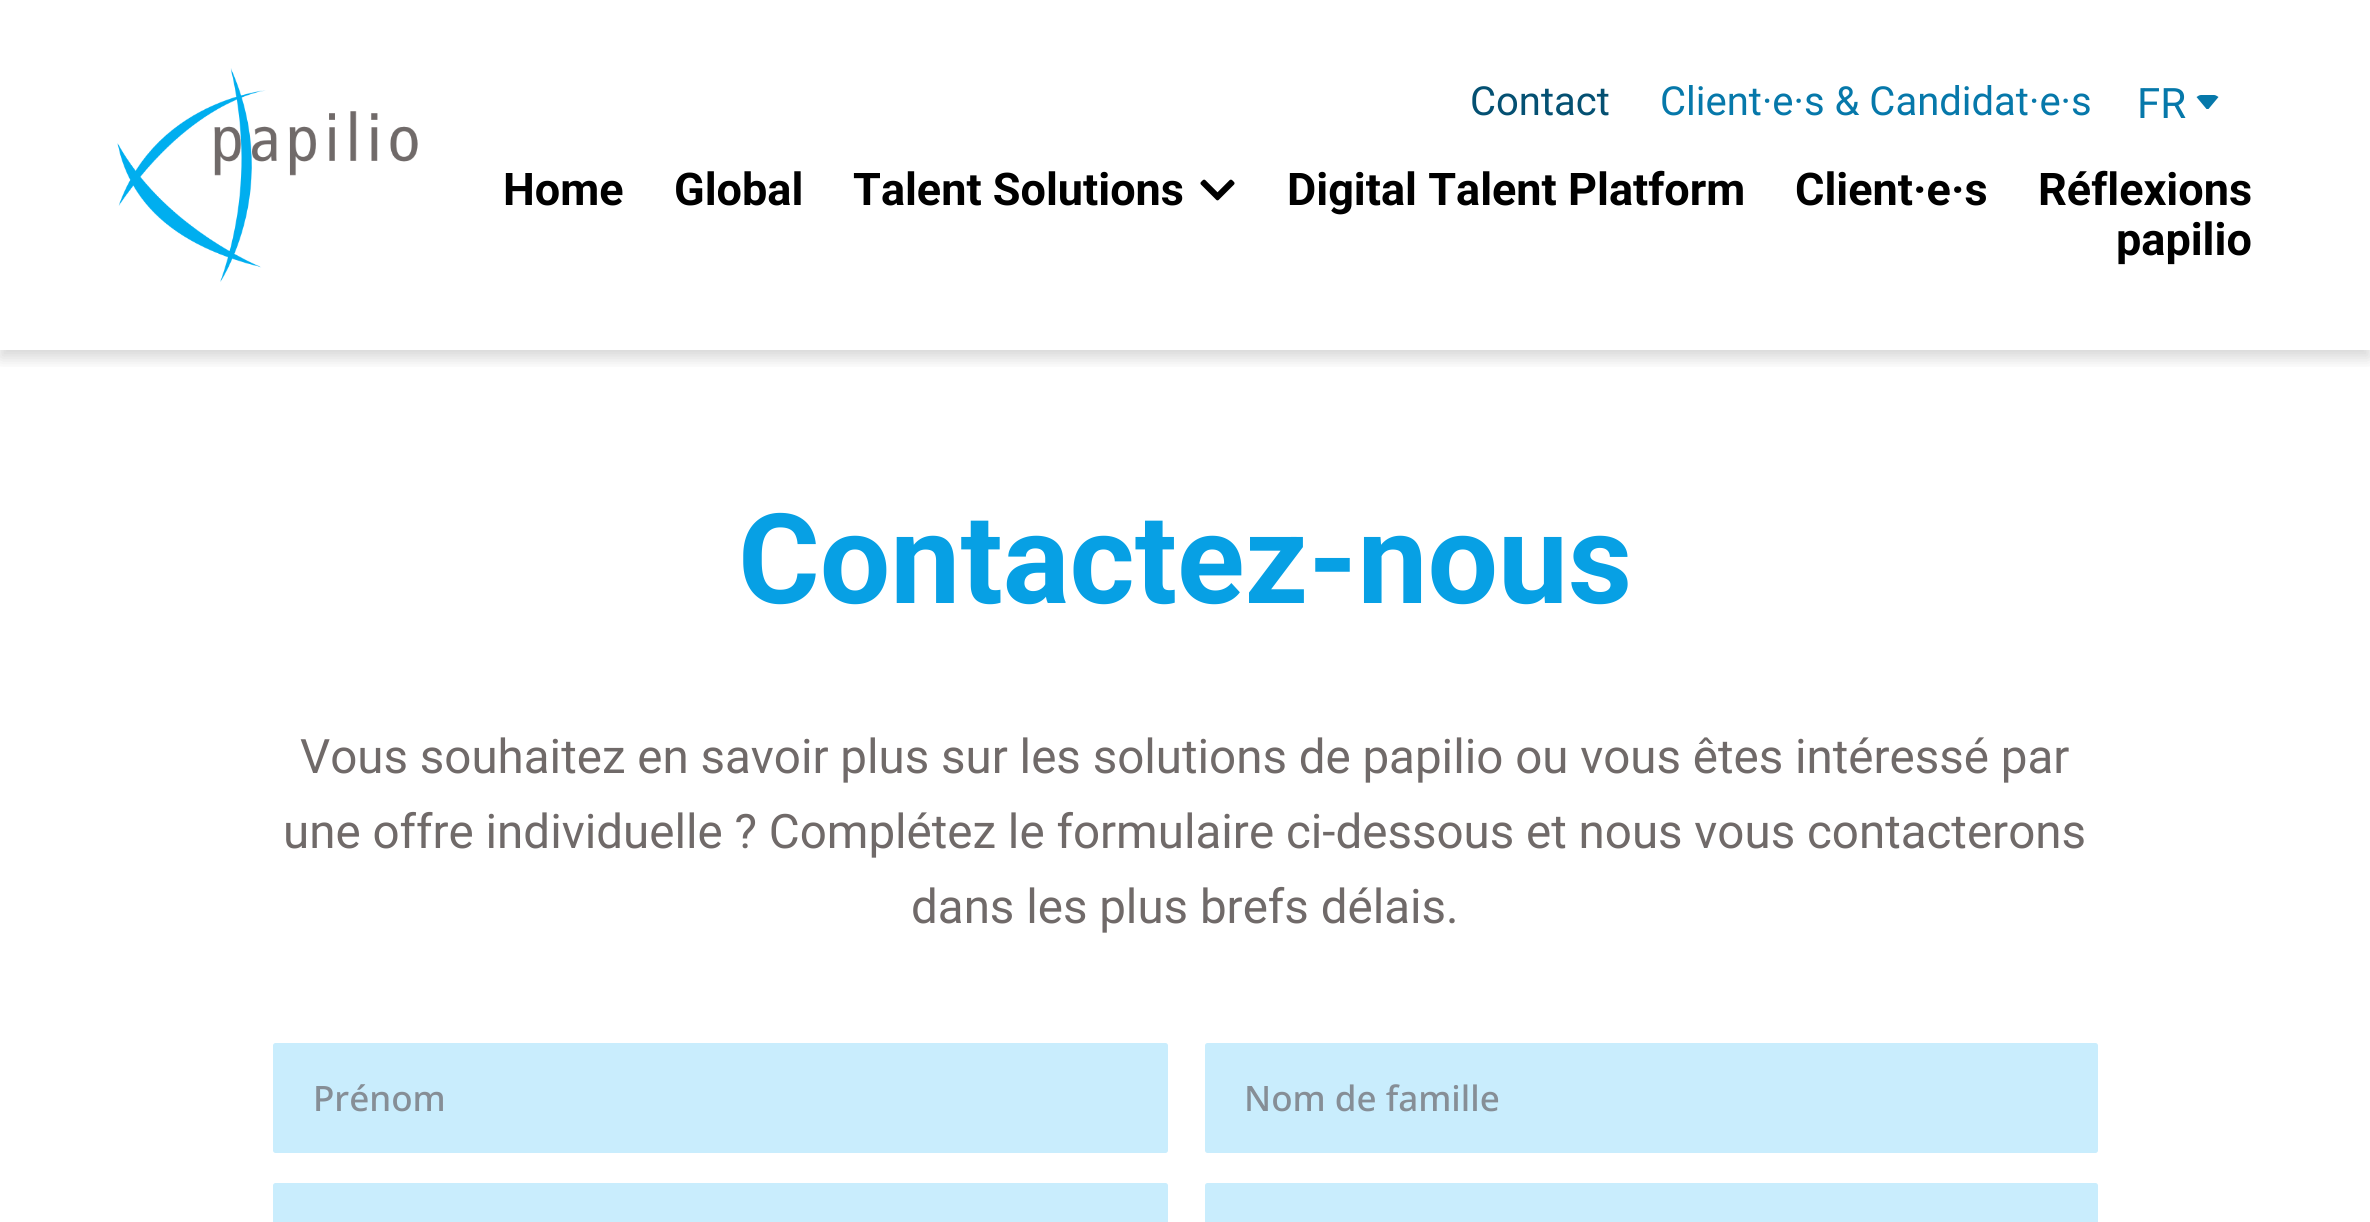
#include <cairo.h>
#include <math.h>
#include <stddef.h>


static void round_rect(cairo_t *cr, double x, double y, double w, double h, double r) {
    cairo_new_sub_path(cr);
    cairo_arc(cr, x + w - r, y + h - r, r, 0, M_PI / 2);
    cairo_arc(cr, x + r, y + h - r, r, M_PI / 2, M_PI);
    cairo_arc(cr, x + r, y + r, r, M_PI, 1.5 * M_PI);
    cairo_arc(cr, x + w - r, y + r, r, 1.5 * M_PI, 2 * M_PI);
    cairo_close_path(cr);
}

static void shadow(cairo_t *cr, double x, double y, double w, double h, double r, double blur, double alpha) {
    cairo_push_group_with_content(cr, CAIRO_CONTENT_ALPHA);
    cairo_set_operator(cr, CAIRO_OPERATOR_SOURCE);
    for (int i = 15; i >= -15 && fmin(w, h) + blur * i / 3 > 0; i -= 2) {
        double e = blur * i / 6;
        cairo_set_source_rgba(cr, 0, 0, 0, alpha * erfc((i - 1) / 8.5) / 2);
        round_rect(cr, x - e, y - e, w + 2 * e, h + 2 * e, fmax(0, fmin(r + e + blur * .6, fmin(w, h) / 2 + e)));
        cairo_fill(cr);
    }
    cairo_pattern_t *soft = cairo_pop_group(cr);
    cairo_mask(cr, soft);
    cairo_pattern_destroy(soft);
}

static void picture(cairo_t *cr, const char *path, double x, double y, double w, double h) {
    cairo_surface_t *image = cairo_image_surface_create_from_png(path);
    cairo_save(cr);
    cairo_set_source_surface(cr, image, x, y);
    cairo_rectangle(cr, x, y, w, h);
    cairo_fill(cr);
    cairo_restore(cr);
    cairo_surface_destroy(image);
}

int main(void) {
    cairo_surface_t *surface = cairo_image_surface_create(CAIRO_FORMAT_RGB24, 2370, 1222);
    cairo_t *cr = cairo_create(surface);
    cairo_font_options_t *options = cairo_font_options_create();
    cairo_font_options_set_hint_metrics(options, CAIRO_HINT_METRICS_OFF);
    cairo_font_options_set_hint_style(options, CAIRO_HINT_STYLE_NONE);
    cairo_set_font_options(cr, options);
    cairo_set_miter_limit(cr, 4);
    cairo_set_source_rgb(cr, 1, 1, 1);
    cairo_paint(cr);
    cairo_save(cr);
    cairo_rectangle(cr, 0, 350, 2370, 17);
    cairo_clip(cr);
    cairo_set_source_rgb(cr, 0, 0, 0);
    shadow(cr, 0, 8, 2370, 350, 0, 7.5, 0.16);
    cairo_restore(cr);
    picture(cr, "img1.png", 117, 68, 301, 214);
    cairo_select_font_face(cr, "Roboto", CAIRO_FONT_SLANT_NORMAL, CAIRO_FONT_WEIGHT_NORMAL);
    cairo_set_font_size(cr, 40);
    cairo_set_source_rgb(cr, 0.016, 0.314, 0.447);
    cairo_move_to(cr, 1470, 115);
    cairo_show_text(cr, "Contact");
    cairo_set_source_rgb(cr, 0.024, 0.471, 0.667);
    cairo_move_to(cr, 1660, 115);
    cairo_show_text(cr, "Client·e·s & Candidat·e·s");
    cairo_set_font_size(cr, 42);
    cairo_move_to(cr, 2137, 118);
    cairo_show_text(cr, "FR");
    cairo_new_path(cr);
    cairo_move_to(cr, 2201, 95);
    cairo_curve_to(cr, 2199.5, 95, 2198, 96, 2196.5, 97);
    cairo_line_to(cr, 2206.5, 109);
    cairo_line_to(cr, 2208.5, 109);
    cairo_line_to(cr, 2218.5, 97);
    cairo_curve_to(cr, 2217, 96, 2215.5, 95, 2214, 95);
    cairo_close_path(cr);
    cairo_fill(cr);
    cairo_select_font_face(cr, "Roboto", CAIRO_FONT_SLANT_NORMAL, CAIRO_FONT_WEIGHT_BOLD);
    cairo_set_font_size(cr, 45);
    cairo_set_source_rgb(cr, 0, 0, 0);
    cairo_move_to(cr, 503, 205);
    cairo_show_text(cr, "Home");
    cairo_move_to(cr, 674, 205);
    cairo_show_text(cr, "Global");
    cairo_move_to(cr, 853, 205);
    cairo_show_text(cr, "Talent Solutions");
    picture(cr, "img2.png", 1200, 179, 35, 22);
    cairo_move_to(cr, 1287, 205);
    cairo_show_text(cr, "Digital Talent Platform");
    cairo_move_to(cr, 1795, 205);
    cairo_show_text(cr, "Client·e·s");
    cairo_move_to(cr, 2038, 205);
    cairo_show_text(cr, "Réflexions");
    cairo_move_to(cr, 2116, 255);
    cairo_show_text(cr, "papilio");
    cairo_set_font_size(cr, 125);
    cairo_set_source_rgb(cr, 0.031, 0.627, 0.894);
    cairo_move_to(cr, 738, 603);
    cairo_show_text(cr, "Contactez-nous");
    cairo_select_font_face(cr, "Roboto", CAIRO_FONT_SLANT_NORMAL, CAIRO_FONT_WEIGHT_NORMAL);
    cairo_set_font_size(cr, 47.5);
    cairo_set_source_rgb(cr, 0.439, 0.416, 0.412);
    cairo_move_to(cr, 300, 773);
    cairo_show_text(cr, "Vous souhaitez en savoir plus sur les solutions de papilio ou vous êtes intéressé par");
    cairo_move_to(cr, 283, 848);
    cairo_show_text(cr, "une offre individuelle ? Complétez le formulaire ci-dessous et nous vous contacterons");
    cairo_move_to(cr, 911, 923);
    cairo_show_text(cr, "dans les plus brefs délais.");
    cairo_set_source_rgb(cr, 0.788, 0.929, 0.992);
    round_rect(cr, 273, 1043, 895, 110, 2.5);
    cairo_fill(cr);
    cairo_select_font_face(cr, "Noto Sans Medium", CAIRO_FONT_SLANT_NORMAL, CAIRO_FONT_WEIGHT_NORMAL);
    cairo_set_font_size(cr, 35);
    cairo_set_source_rgb(cr, 0.525, 0.557, 0.588);
    cairo_move_to(cr, 313, 1111);
    cairo_show_text(cr, "Prénom");
    cairo_set_source_rgb(cr, 0.788, 0.929, 0.992);
    round_rect(cr, 1205, 1043, 893, 110, 2.5);
    cairo_fill(cr);
    cairo_set_source_rgb(cr, 0.525, 0.557, 0.588);
    cairo_move_to(cr, 1244, 1111);
    cairo_show_text(cr, "Nom de famille");
    cairo_set_source_rgb(cr, 0.788, 0.929, 0.992);
    round_rect(cr, 273, 1183, 895, 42, 2.5);
    cairo_fill(cr);
    round_rect(cr, 1205, 1183, 893, 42, 2.5);
    cairo_fill(cr);
    cairo_surface_write_to_png(surface, "page.png");
    cairo_font_options_destroy(options);
    cairo_destroy(cr);
    cairo_surface_destroy(surface);
    return 0;
}
